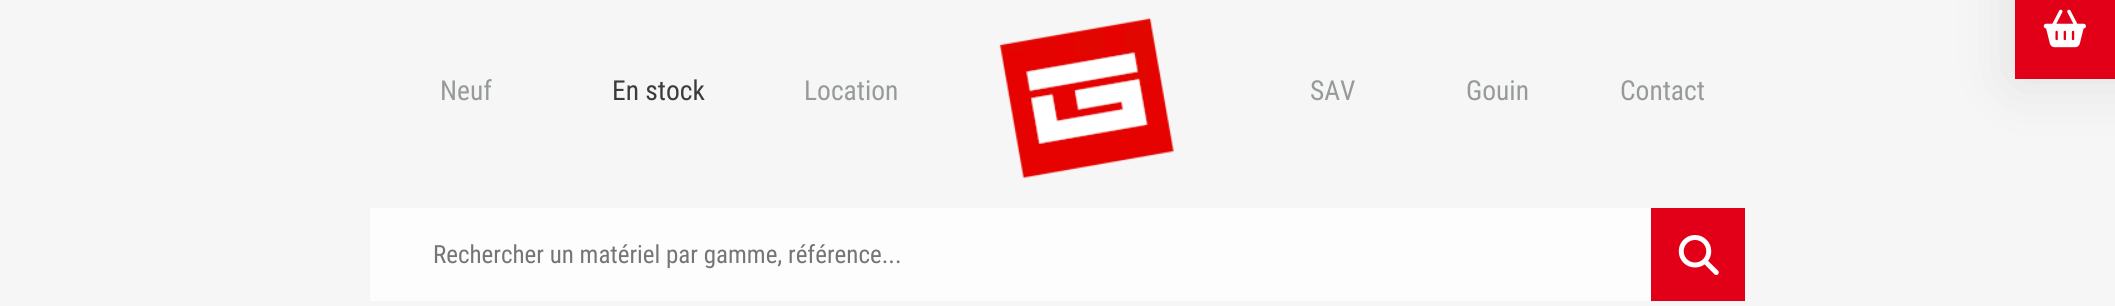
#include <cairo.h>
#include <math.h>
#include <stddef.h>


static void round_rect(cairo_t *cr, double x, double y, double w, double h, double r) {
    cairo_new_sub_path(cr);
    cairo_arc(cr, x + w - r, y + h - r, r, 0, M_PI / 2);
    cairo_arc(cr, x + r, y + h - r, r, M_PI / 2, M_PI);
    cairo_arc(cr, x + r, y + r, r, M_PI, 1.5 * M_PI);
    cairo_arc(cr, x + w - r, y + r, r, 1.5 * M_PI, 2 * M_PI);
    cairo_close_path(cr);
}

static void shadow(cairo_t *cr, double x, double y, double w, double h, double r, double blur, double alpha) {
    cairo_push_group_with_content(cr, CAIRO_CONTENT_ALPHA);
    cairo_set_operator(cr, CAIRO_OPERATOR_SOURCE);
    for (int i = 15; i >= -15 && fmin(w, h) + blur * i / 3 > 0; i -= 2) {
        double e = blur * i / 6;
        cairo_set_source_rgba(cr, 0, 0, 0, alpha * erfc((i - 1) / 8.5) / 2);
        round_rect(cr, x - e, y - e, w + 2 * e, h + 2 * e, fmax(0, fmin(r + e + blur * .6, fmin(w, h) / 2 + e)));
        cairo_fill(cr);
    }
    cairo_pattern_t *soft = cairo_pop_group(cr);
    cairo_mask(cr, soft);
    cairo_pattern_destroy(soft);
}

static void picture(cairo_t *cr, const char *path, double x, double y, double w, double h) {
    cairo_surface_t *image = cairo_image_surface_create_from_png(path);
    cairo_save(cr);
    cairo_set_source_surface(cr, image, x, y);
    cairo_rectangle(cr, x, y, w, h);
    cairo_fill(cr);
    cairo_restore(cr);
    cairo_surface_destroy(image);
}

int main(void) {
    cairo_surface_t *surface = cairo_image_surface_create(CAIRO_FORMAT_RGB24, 2115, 306);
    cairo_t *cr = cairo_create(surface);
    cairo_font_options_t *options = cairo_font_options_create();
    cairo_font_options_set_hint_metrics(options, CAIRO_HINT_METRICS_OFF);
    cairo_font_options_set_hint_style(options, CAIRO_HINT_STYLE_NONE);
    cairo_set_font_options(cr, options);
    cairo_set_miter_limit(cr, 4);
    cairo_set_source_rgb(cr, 0.961, 0.961, 0.961);
    cairo_paint(cr);
    cairo_select_font_face(cr, "Roboto Condensed", CAIRO_FONT_SLANT_NORMAL, CAIRO_FONT_WEIGHT_NORMAL);
    cairo_set_font_size(cr, 27.5);
    cairo_set_source_rgb(cr, 0.592, 0.604, 0.608);
    cairo_move_to(cr, 440, 100);
    cairo_show_text(cr, "Neuf");
    cairo_set_source_rgb(cr, 0.235, 0.235, 0.235);
    cairo_move_to(cr, 612, 100);
    cairo_show_text(cr, "En stock");
    cairo_set_source_rgb(cr, 0.592, 0.604, 0.608);
    cairo_move_to(cr, 804, 100);
    cairo_show_text(cr, "Location");
    picture(cr, "img1.png", 999, 17, 175, 162);
    cairo_move_to(cr, 1310, 100);
    cairo_show_text(cr, "SAV");
    cairo_move_to(cr, 1466, 100);
    cairo_show_text(cr, "Gouin");
    cairo_move_to(cr, 1620, 100);
    cairo_show_text(cr, "Contact");
    cairo_set_source_rgb(cr, 0.992, 0.992, 0.992);
    cairo_rectangle(cr, 370, 208, 1281, 93);
    cairo_fill(cr);
    cairo_set_font_size(cr, 25);
    cairo_set_source_rgb(cr, 0.459, 0.459, 0.459);
    cairo_move_to(cr, 433, 263);
    cairo_show_text(cr, "Rechercher un matériel par gamme, référence...");
    cairo_set_source_rgb(cr, 0.886, 0, 0.098);
    cairo_rectangle(cr, 1651, 208, 94, 93);
    cairo_fill(cr);
    picture(cr, "img2.png", 1678, 235, 41, 40);
    cairo_set_source_rgb(cr, 0, 0, 0);
    shadow(cr, 2015, -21, 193, 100, 0, 31, 0.1);
    cairo_set_source_rgb(cr, 0.886, 0, 0.098);
    cairo_rectangle(cr, 2015, 0, 100, 79);
    cairo_fill(cr);
    picture(cr, "img3.png", 2043, 9, 43, 39);
    cairo_surface_write_to_png(surface, "page.png");
    cairo_font_options_destroy(options);
    cairo_destroy(cr);
    cairo_surface_destroy(surface);
    return 0;
}
